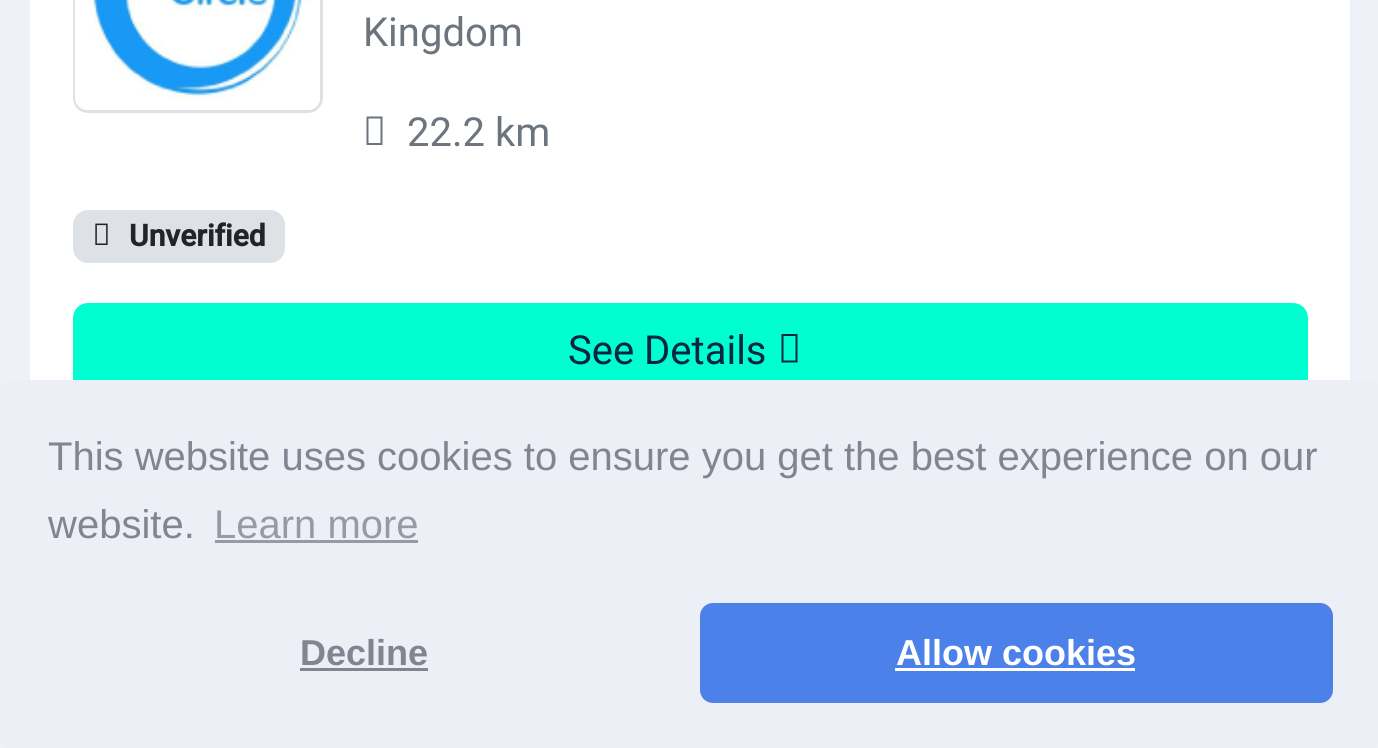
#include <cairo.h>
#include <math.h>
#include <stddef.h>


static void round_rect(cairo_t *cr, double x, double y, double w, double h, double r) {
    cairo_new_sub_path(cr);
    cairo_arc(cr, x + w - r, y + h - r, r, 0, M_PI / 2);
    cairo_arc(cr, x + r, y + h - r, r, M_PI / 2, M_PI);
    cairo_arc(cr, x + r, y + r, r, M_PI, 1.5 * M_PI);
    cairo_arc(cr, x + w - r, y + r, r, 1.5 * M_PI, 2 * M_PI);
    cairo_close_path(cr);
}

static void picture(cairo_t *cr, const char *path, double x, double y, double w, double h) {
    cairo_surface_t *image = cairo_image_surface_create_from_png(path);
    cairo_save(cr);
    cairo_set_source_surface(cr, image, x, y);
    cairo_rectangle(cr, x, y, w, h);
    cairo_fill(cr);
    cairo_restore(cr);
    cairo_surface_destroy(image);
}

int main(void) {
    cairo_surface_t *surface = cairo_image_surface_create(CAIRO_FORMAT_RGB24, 1378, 748);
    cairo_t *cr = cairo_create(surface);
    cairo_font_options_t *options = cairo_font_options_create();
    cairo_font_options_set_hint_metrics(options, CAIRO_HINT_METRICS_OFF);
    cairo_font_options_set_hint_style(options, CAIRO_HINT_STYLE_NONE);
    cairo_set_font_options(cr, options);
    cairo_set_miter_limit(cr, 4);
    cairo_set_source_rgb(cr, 0.933, 0.949, 0.969);
    cairo_paint(cr);
    cairo_set_source_rgb(cr, 1, 1, 1);
    cairo_rectangle(cr, 33, 0, 1314, 380);
    cairo_fill(cr);
    cairo_rectangle(cr, 31.5, -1.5, 1317, 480);
    cairo_set_line_width(cr, 3);
    cairo_stroke(cr);
    round_rect(cr, 74.5, -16.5, 247, 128, 13.5);
    cairo_set_source_rgb(cr, 0.871, 0.886, 0.902);
    cairo_stroke(cr);
    picture(cr, "img1.png", 75, 0, 245, 110);
    cairo_select_font_face(cr, "Roboto", CAIRO_FONT_SLANT_NORMAL, CAIRO_FONT_WEIGHT_NORMAL);
    cairo_set_font_size(cr, 40);
    cairo_set_source_rgb(cr, 0.424, 0.459, 0.49);
    cairo_move_to(cr, 363, 46);
    cairo_show_text(cr, "Kingdom");
    cairo_new_path(cr);
    cairo_move_to(cr, 366.5, 145);
    cairo_line_to(cr, 366.5, 116.5);
    cairo_line_to(cr, 382.5, 116.5);
    cairo_line_to(cr, 382.5, 145);
    cairo_close_path(cr);
    cairo_move_to(cr, 368.5, 143);
    cairo_line_to(cr, 380.5, 143);
    cairo_line_to(cr, 380.5, 118.5);
    cairo_line_to(cr, 368.5, 118.5);
    cairo_close_path(cr);
    cairo_fill(cr);
    cairo_move_to(cr, 407, 146);
    cairo_show_text(cr, "22.2 km");
    cairo_set_source_rgb(cr, 0.871, 0.886, 0.902);
    round_rect(cr, 73, 210, 212, 53, 15);
    cairo_fill(cr);
    picture(cr, "img2.png", 95, 223, 13, 22);
    cairo_select_font_face(cr, "Roboto", CAIRO_FONT_SLANT_NORMAL, CAIRO_FONT_WEIGHT_BOLD);
    cairo_set_font_size(cr, 30);
    cairo_set_source_rgb(cr, 0.129, 0.145, 0.161);
    cairo_move_to(cr, 129, 246);
    cairo_show_text(cr, "Unverified");
    cairo_set_source_rgb(cr, 0, 1, 0.816);
    round_rect(cr, 74.5, 304.5, 1232, 92, 13.5);
    cairo_fill_preserve(cr);
    cairo_stroke(cr);
    cairo_select_font_face(cr, "Roboto", CAIRO_FONT_SLANT_NORMAL, CAIRO_FONT_WEIGHT_NORMAL);
    cairo_set_font_size(cr, 40);
    cairo_set_source_rgb(cr, 0.035, 0.149, 0.255);
    cairo_move_to(cr, 568, 364);
    cairo_show_text(cr, "See Details");
    cairo_new_path(cr);
    cairo_move_to(cr, 781.5, 362.5);
    cairo_line_to(cr, 781.5, 334);
    cairo_line_to(cr, 797.5, 334);
    cairo_line_to(cr, 797.5, 362.5);
    cairo_close_path(cr);
    cairo_move_to(cr, 783.5, 360.5);
    cairo_line_to(cr, 795.5, 360.5);
    cairo_line_to(cr, 795.5, 336);
    cairo_line_to(cr, 783.5, 336);
    cairo_close_path(cr);
    cairo_fill(cr);
    cairo_set_source_rgb(cr, 0.929, 0.937, 0.961);
    round_rect(cr, 0, 380, 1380, 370, 13);
    cairo_fill(cr);
    cairo_select_font_face(cr, "Liberation Sans", CAIRO_FONT_SLANT_NORMAL, CAIRO_FONT_WEIGHT_NORMAL);
    cairo_set_source_rgb(cr, 0.514, 0.514, 0.569);
    cairo_move_to(cr, 48, 470);
    cairo_show_text(cr, "This website uses cookies to ensure you get the best experience on our");
    cairo_move_to(cr, 48, 538);
    cairo_show_text(cr, "website.");
    cairo_set_source_rgb(cr, 0.596, 0.6, 0.647);
    cairo_move_to(cr, 214, 538);
    cairo_show_text(cr, "Learn more");
    cairo_rectangle(cr, 215, 540, 203, 3);
    cairo_fill(cr);
    cairo_select_font_face(cr, "Liberation Sans", CAIRO_FONT_SLANT_NORMAL, CAIRO_FONT_WEIGHT_BOLD);
    cairo_set_font_size(cr, 36);
    cairo_set_source_rgb(cr, 0.514, 0.514, 0.569);
    cairo_move_to(cr, 300, 665);
    cairo_show_text(cr, "Decline");
    cairo_rectangle(cr, 300, 668, 128, 3);
    cairo_fill(cr);
    cairo_set_source_rgb(cr, 0.294, 0.506, 0.91);
    round_rect(cr, 700, 603, 633, 100, 13);
    cairo_fill(cr);
    cairo_set_source_rgb(cr, 1, 1, 1);
    cairo_move_to(cr, 896, 665);
    cairo_show_text(cr, "Allow cookies");
    cairo_rectangle(cr, 895, 668, 240, 3);
    cairo_fill(cr);
    cairo_surface_write_to_png(surface, "page.png");
    cairo_font_options_destroy(options);
    cairo_destroy(cr);
    cairo_surface_destroy(surface);
    return 0;
}
